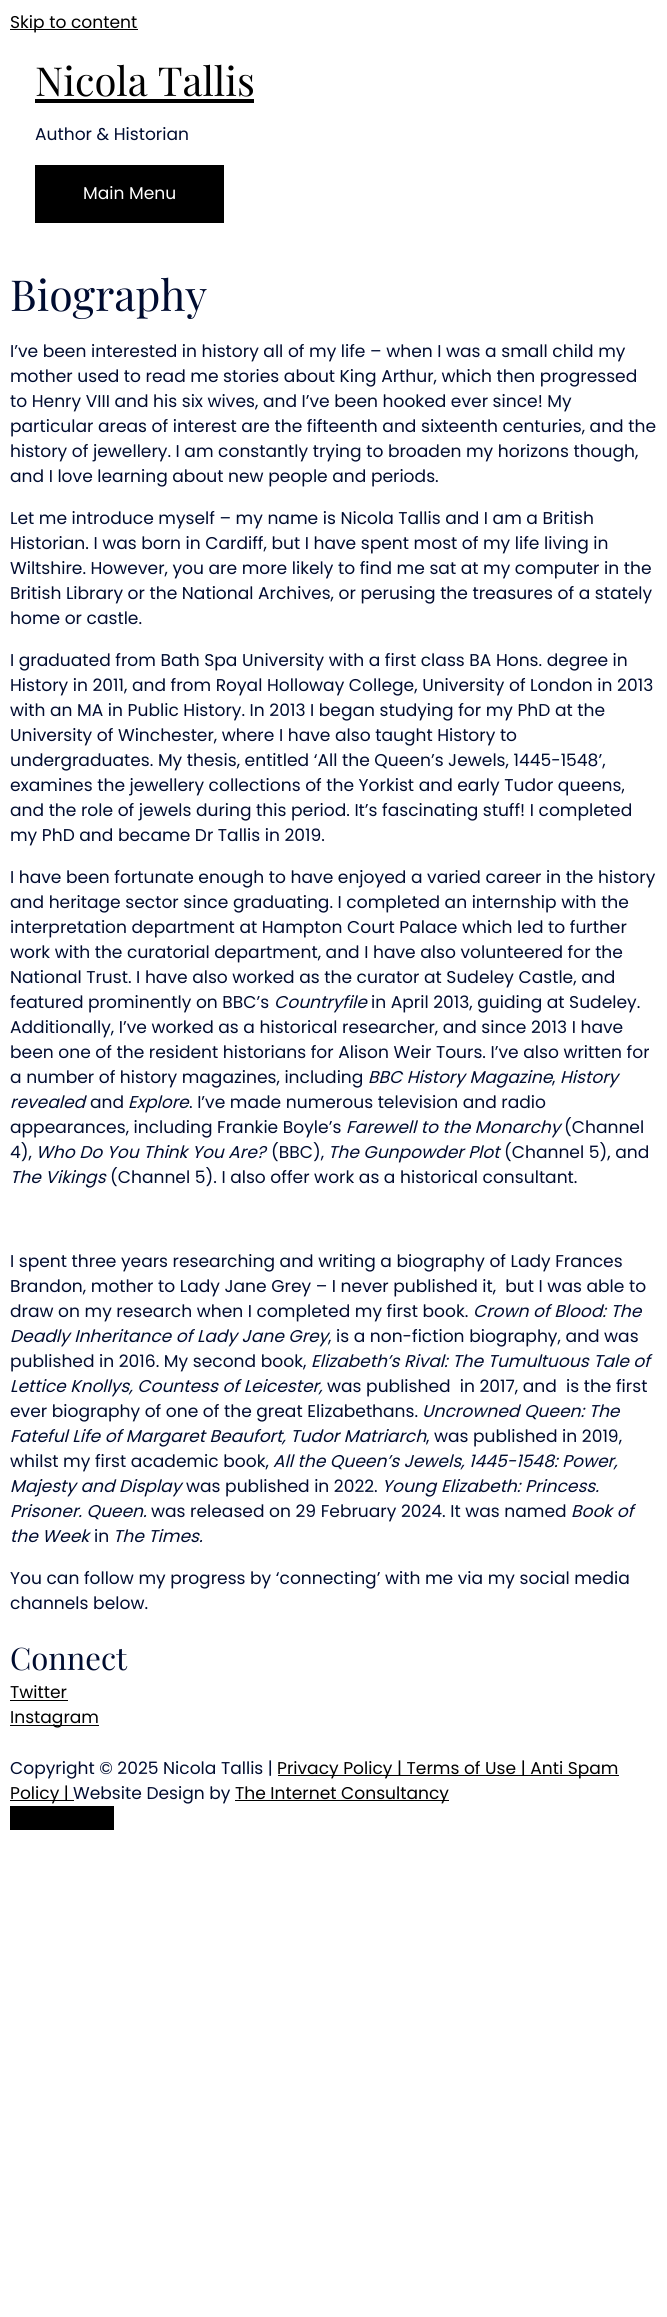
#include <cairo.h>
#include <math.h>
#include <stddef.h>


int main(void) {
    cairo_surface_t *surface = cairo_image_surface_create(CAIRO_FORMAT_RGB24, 667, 2317);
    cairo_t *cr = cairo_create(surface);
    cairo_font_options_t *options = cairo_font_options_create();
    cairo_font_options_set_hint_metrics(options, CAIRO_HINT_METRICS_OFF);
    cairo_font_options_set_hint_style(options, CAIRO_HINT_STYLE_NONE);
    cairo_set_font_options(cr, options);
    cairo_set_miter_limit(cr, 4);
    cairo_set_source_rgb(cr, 1, 1, 1);
    cairo_paint(cr);
    cairo_set_source_rgb(cr, 0, 0, 0);
    cairo_rectangle(cr, 10, 29, 128, 1);
    cairo_fill(cr);
    cairo_select_font_face(cr, "Poppins", CAIRO_FONT_SLANT_NORMAL, CAIRO_FONT_WEIGHT_NORMAL);
    cairo_set_font_size(cr, 17.1);
    cairo_move_to(cr, 10, 28);
    cairo_show_text(cr, "Skip to content");
    cairo_select_font_face(cr, "Playfair Display", CAIRO_FONT_SLANT_NORMAL, CAIRO_FONT_WEIGHT_NORMAL);
    cairo_set_font_size(cr, 40);
    cairo_move_to(cr, 35, 96);
    cairo_show_text(cr, "Nicola Tallis");
    cairo_rectangle(cr, 35, 99, 219, 4);
    cairo_fill(cr);
    cairo_select_font_face(cr, "Poppins", CAIRO_FONT_SLANT_NORMAL, CAIRO_FONT_WEIGHT_NORMAL);
    cairo_set_font_size(cr, 17.1);
    cairo_set_source_rgb(cr, 0, 0.047, 0.188);
    cairo_move_to(cr, 35, 140);
    cairo_show_text(cr, "Author & Historian");
    cairo_set_source_rgb(cr, 0, 0, 0);
    cairo_rectangle(cr, 35, 165, 189, 58);
    cairo_fill(cr);
    cairo_set_source_rgb(cr, 1, 1, 1);
    cairo_move_to(cr, 83, 199);
    cairo_show_text(cr, "Main Menu");
    cairo_select_font_face(cr, "Playfair Display", CAIRO_FONT_SLANT_NORMAL, CAIRO_FONT_WEIGHT_NORMAL);
    cairo_set_font_size(cr, 42.75);
    cairo_set_source_rgb(cr, 0, 0.047, 0.188);
    cairo_move_to(cr, 10, 311);
    cairo_show_text(cr, "Biography");
    cairo_select_font_face(cr, "Poppins", CAIRO_FONT_SLANT_NORMAL, CAIRO_FONT_WEIGHT_NORMAL);
    cairo_set_font_size(cr, 17.1);
    cairo_move_to(cr, 10, 357);
    cairo_show_text(cr, "I’ve been interested in history all of my life – when I was a small child my");
    cairo_move_to(cr, 10, 382);
    cairo_show_text(cr, "mother used to read me stories about King Arthur, which then progressed");
    cairo_move_to(cr, 10, 407);
    cairo_show_text(cr, "to Henry VIII and his six wives, and I’ve been hooked ever since! My");
    cairo_move_to(cr, 10, 432);
    cairo_show_text(cr, "particular areas of interest are the fifteenth and sixteenth centuries, and the");
    cairo_move_to(cr, 10, 457);
    cairo_show_text(cr, "history of jewellery. I am constantly trying to broaden my horizons though,");
    cairo_move_to(cr, 10, 482);
    cairo_show_text(cr, "and I love learning about new people and periods.");
    cairo_move_to(cr, 10, 524);
    cairo_show_text(cr, "Let me introduce myself – my name is Nicola Tallis and I am a British");
    cairo_move_to(cr, 10, 549);
    cairo_show_text(cr, "Historian. I was born in Cardiff, but I have spent most of my life living in");
    cairo_move_to(cr, 10, 574);
    cairo_show_text(cr, "Wiltshire. However, you are more likely to find me sat at my computer in the");
    cairo_move_to(cr, 10, 599);
    cairo_show_text(cr, "British Library or the National Archives, or perusing the treasures of a stately");
    cairo_move_to(cr, 10, 624);
    cairo_show_text(cr, "home or castle.");
    cairo_move_to(cr, 10, 666);
    cairo_show_text(cr, "I graduated from Bath Spa University with a first class BA Hons. degree in");
    cairo_move_to(cr, 10, 691);
    cairo_show_text(cr, "History in 2011, and from Royal Holloway College, University of London in 2013");
    cairo_move_to(cr, 10, 716);
    cairo_show_text(cr, "with an MA in Public History. In 2013 I began studying for my PhD at the");
    cairo_move_to(cr, 10, 741);
    cairo_show_text(cr, "University of Winchester, where I have also taught History to");
    cairo_move_to(cr, 10, 766);
    cairo_show_text(cr, "undergraduates. My thesis, entitled ‘All the Queen’s Jewels, 1445-1548’,");
    cairo_move_to(cr, 10, 791);
    cairo_show_text(cr, "examines the jewellery collections of the Yorkist and early Tudor queens,");
    cairo_move_to(cr, 10, 816);
    cairo_show_text(cr, "and the role of jewels during this period. It’s fascinating stuff! I completed");
    cairo_move_to(cr, 10, 841);
    cairo_show_text(cr, "my PhD and became Dr Tallis in 2019.");
    cairo_move_to(cr, 10, 883);
    cairo_show_text(cr, "I have been fortunate enough to have enjoyed a varied career in the history");
    cairo_move_to(cr, 10, 908);
    cairo_show_text(cr, "and heritage sector since graduating. I completed an internship with the");
    cairo_move_to(cr, 10, 933);
    cairo_show_text(cr, "interpretation department at Hampton Court Palace which led to further");
    cairo_move_to(cr, 10, 958);
    cairo_show_text(cr, "work with the curatorial department, and I have also volunteered for the");
    cairo_move_to(cr, 10, 983);
    cairo_show_text(cr, "National Trust. I have also worked as the curator at Sudeley Castle, and");
    cairo_move_to(cr, 10, 1008);
    cairo_show_text(cr, "featured prominently on BBC’s");
    cairo_select_font_face(cr, "Poppins", CAIRO_FONT_SLANT_ITALIC, CAIRO_FONT_WEIGHT_NORMAL);
    cairo_move_to(cr, 274, 1008);
    cairo_show_text(cr, "Countryfile");
    cairo_select_font_face(cr, "Poppins", CAIRO_FONT_SLANT_NORMAL, CAIRO_FONT_WEIGHT_NORMAL);
    cairo_move_to(cr, 371, 1008);
    cairo_show_text(cr, "in April 2013, guiding at Sudeley.");
    cairo_move_to(cr, 10, 1033);
    cairo_show_text(cr, "Additionally, I’ve worked as a historical researcher, and since 2013 I have");
    cairo_move_to(cr, 10, 1058);
    cairo_show_text(cr, "been one of the resident historians for Alison Weir Tours. I’ve also written for");
    cairo_move_to(cr, 10, 1083);
    cairo_show_text(cr, "a number of history magazines, including");
    cairo_select_font_face(cr, "Poppins", CAIRO_FONT_SLANT_ITALIC, CAIRO_FONT_WEIGHT_NORMAL);
    cairo_move_to(cr, 368, 1083);
    cairo_show_text(cr, "BBC History Magazine");
    cairo_move_to(cr, 560, 1083);
    cairo_show_text(cr, "History");
    cairo_select_font_face(cr, "Poppins", CAIRO_FONT_SLANT_NORMAL, CAIRO_FONT_WEIGHT_NORMAL);
    cairo_move_to(cr, 552, 1083);
    cairo_show_text(cr, ",");
    cairo_select_font_face(cr, "Poppins", CAIRO_FONT_SLANT_ITALIC, CAIRO_FONT_WEIGHT_NORMAL);
    cairo_move_to(cr, 10, 1108);
    cairo_show_text(cr, "revealed");
    cairo_select_font_face(cr, "Poppins", CAIRO_FONT_SLANT_NORMAL, CAIRO_FONT_WEIGHT_NORMAL);
    cairo_move_to(cr, 90, 1108);
    cairo_show_text(cr, "and");
    cairo_select_font_face(cr, "Poppins", CAIRO_FONT_SLANT_ITALIC, CAIRO_FONT_WEIGHT_NORMAL);
    cairo_move_to(cr, 128, 1108);
    cairo_show_text(cr, "Explore");
    cairo_select_font_face(cr, "Poppins", CAIRO_FONT_SLANT_NORMAL, CAIRO_FONT_WEIGHT_NORMAL);
    cairo_move_to(cr, 189, 1108);
    cairo_show_text(cr, ". I’ve made numerous television and radio");
    cairo_move_to(cr, 10, 1133);
    cairo_show_text(cr, "appearances, including Frankie Boyle’s");
    cairo_select_font_face(cr, "Poppins", CAIRO_FONT_SLANT_ITALIC, CAIRO_FONT_WEIGHT_NORMAL);
    cairo_move_to(cr, 346, 1133);
    cairo_show_text(cr, "Farewell to the Monarchy");
    cairo_select_font_face(cr, "Poppins", CAIRO_FONT_SLANT_NORMAL, CAIRO_FONT_WEIGHT_NORMAL);
    cairo_move_to(cr, 564, 1133);
    cairo_show_text(cr, "(Channel");
    cairo_move_to(cr, 10, 1158);
    cairo_show_text(cr, "4),");
    cairo_select_font_face(cr, "Poppins", CAIRO_FONT_SLANT_ITALIC, CAIRO_FONT_WEIGHT_NORMAL);
    cairo_move_to(cr, 36, 1158);
    cairo_show_text(cr, "Who Do You Think You Are?");
    cairo_select_font_face(cr, "Poppins", CAIRO_FONT_SLANT_NORMAL, CAIRO_FONT_WEIGHT_NORMAL);
    cairo_move_to(cr, 271, 1158);
    cairo_show_text(cr, "(BBC),");
    cairo_select_font_face(cr, "Poppins", CAIRO_FONT_SLANT_ITALIC, CAIRO_FONT_WEIGHT_NORMAL);
    cairo_move_to(cr, 328, 1158);
    cairo_show_text(cr, "The Gunpowder Plot");
    cairo_select_font_face(cr, "Poppins", CAIRO_FONT_SLANT_NORMAL, CAIRO_FONT_WEIGHT_NORMAL);
    cairo_move_to(cr, 504, 1158);
    cairo_show_text(cr, "(Channel 5), and");
    cairo_select_font_face(cr, "Poppins", CAIRO_FONT_SLANT_ITALIC, CAIRO_FONT_WEIGHT_NORMAL);
    cairo_move_to(cr, 10, 1183);
    cairo_show_text(cr, "The Vikings");
    cairo_select_font_face(cr, "Poppins", CAIRO_FONT_SLANT_NORMAL, CAIRO_FONT_WEIGHT_NORMAL);
    cairo_move_to(cr, 110, 1183);
    cairo_show_text(cr, "(Channel 5). I also offer work as a historical consultant.");
    cairo_move_to(cr, 10, 1267);
    cairo_show_text(cr, "I spent three years researching and writing a biography of Lady Frances");
    cairo_move_to(cr, 10, 1292);
    cairo_show_text(cr, "Brandon, mother to Lady Jane Grey – I never published it,  but I was able to");
    cairo_move_to(cr, 10, 1317);
    cairo_show_text(cr, "draw on my research when I completed my first book.");
    cairo_select_font_face(cr, "Poppins", CAIRO_FONT_SLANT_ITALIC, CAIRO_FONT_WEIGHT_NORMAL);
    cairo_move_to(cr, 473, 1317);
    cairo_show_text(cr, "Crown of Blood: The");
    cairo_move_to(cr, 10, 1342);
    cairo_show_text(cr, "Deadly Inheritance of Lady Jane Grey");
    cairo_select_font_face(cr, "Poppins", CAIRO_FONT_SLANT_NORMAL, CAIRO_FONT_WEIGHT_NORMAL);
    cairo_move_to(cr, 328, 1342);
    cairo_show_text(cr, ", is a non-fiction biography, and was");
    cairo_move_to(cr, 10, 1367);
    cairo_show_text(cr, "published in 2016. My second book,");
    cairo_select_font_face(cr, "Poppins", CAIRO_FONT_SLANT_ITALIC, CAIRO_FONT_WEIGHT_NORMAL);
    cairo_move_to(cr, 311, 1367);
    cairo_show_text(cr, "Elizabeth’s Rival: The Tumultuous Tale of");
    cairo_move_to(cr, 10, 1392);
    cairo_show_text(cr, "Lettice Knollys, Countess of Leicester,");
    cairo_select_font_face(cr, "Poppins", CAIRO_FONT_SLANT_NORMAL, CAIRO_FONT_WEIGHT_NORMAL);
    cairo_move_to(cr, 327, 1392);
    cairo_show_text(cr, "was published  in 2017, and  is the first");
    cairo_move_to(cr, 10, 1417);
    cairo_show_text(cr, "ever biography of one of the great Elizabethans.");
    cairo_select_font_face(cr, "Poppins", CAIRO_FONT_SLANT_ITALIC, CAIRO_FONT_WEIGHT_NORMAL);
    cairo_move_to(cr, 422, 1417);
    cairo_show_text(cr, "Uncrowned Queen: The");
    cairo_move_to(cr, 10, 1442);
    cairo_show_text(cr, "Fateful Life of Margaret Beaufort, Tudor Matriarch");
    cairo_select_font_face(cr, "Poppins", CAIRO_FONT_SLANT_NORMAL, CAIRO_FONT_WEIGHT_NORMAL);
    cairo_move_to(cr, 426, 1442);
    cairo_show_text(cr, ", was published in 2019,");
    cairo_move_to(cr, 10, 1467);
    cairo_show_text(cr, "whilst my first academic book,");
    cairo_select_font_face(cr, "Poppins", CAIRO_FONT_SLANT_ITALIC, CAIRO_FONT_WEIGHT_NORMAL);
    cairo_move_to(cr, 273, 1467);
    cairo_show_text(cr, "All the Queen’s Jewels, 1445-1548: Power,");
    cairo_move_to(cr, 10, 1492);
    cairo_show_text(cr, "Majesty and Display");
    cairo_select_font_face(cr, "Poppins", CAIRO_FONT_SLANT_NORMAL, CAIRO_FONT_WEIGHT_NORMAL);
    cairo_move_to(cr, 186, 1492);
    cairo_show_text(cr, "was published in 2022.");
    cairo_select_font_face(cr, "Poppins", CAIRO_FONT_SLANT_ITALIC, CAIRO_FONT_WEIGHT_NORMAL);
    cairo_move_to(cr, 382, 1492);
    cairo_show_text(cr, "Young Elizabeth: Princess.");
    cairo_move_to(cr, 10, 1517);
    cairo_show_text(cr, "Prisoner. Queen.");
    cairo_select_font_face(cr, "Poppins", CAIRO_FONT_SLANT_NORMAL, CAIRO_FONT_WEIGHT_NORMAL);
    cairo_move_to(cr, 151, 1517);
    cairo_show_text(cr, "was released on 29 February 2024. It was named");
    cairo_select_font_face(cr, "Poppins", CAIRO_FONT_SLANT_ITALIC, CAIRO_FONT_WEIGHT_NORMAL);
    cairo_move_to(cr, 571, 1517);
    cairo_show_text(cr, "Book of");
    cairo_move_to(cr, 10, 1542);
    cairo_show_text(cr, "the Week");
    cairo_select_font_face(cr, "Poppins", CAIRO_FONT_SLANT_NORMAL, CAIRO_FONT_WEIGHT_NORMAL);
    cairo_move_to(cr, 94, 1542);
    cairo_show_text(cr, "in");
    cairo_select_font_face(cr, "Poppins", CAIRO_FONT_SLANT_ITALIC, CAIRO_FONT_WEIGHT_NORMAL);
    cairo_move_to(cr, 113, 1542);
    cairo_show_text(cr, "The Times.");
    cairo_select_font_face(cr, "Poppins", CAIRO_FONT_SLANT_NORMAL, CAIRO_FONT_WEIGHT_NORMAL);
    cairo_move_to(cr, 10, 1584);
    cairo_show_text(cr, "You can follow my progress by ‘connecting’ with me via my social media");
    cairo_move_to(cr, 10, 1609);
    cairo_show_text(cr, "channels below.");
    cairo_select_font_face(cr, "Playfair Display", CAIRO_FONT_SLANT_NORMAL, CAIRO_FONT_WEIGHT_NORMAL);
    cairo_set_font_size(cr, 31);
    cairo_move_to(cr, 10, 1670);
    cairo_show_text(cr, "Connect");
    cairo_select_font_face(cr, "Poppins", CAIRO_FONT_SLANT_NORMAL, CAIRO_FONT_WEIGHT_NORMAL);
    cairo_set_font_size(cr, 17.1);
    cairo_set_source_rgb(cr, 0, 0, 0);
    cairo_move_to(cr, 10, 1698);
    cairo_show_text(cr, "Twitter");
    cairo_rectangle(cr, 10, 1700, 58, 1);
    cairo_fill(cr);
    cairo_rectangle(cr, 10, 1725, 89, 1);
    cairo_fill(cr);
    cairo_move_to(cr, 10, 1723);
    cairo_show_text(cr, "Instagram");
    cairo_set_source_rgb(cr, 0, 0.047, 0.188);
    cairo_move_to(cr, 10, 1774);
    cairo_show_text(cr, "Copyright © 2025 Nicola Tallis |");
    cairo_set_source_rgb(cr, 0, 0, 0);
    cairo_rectangle(cr, 278, 1775, 341, 1);
    cairo_fill(cr);
    cairo_move_to(cr, 277, 1774);
    cairo_show_text(cr, "Privacy Policy | Terms of Use | Anti Spam");
    cairo_rectangle(cr, 10, 1800, 64, 1);
    cairo_fill(cr);
    cairo_move_to(cr, 10, 1799);
    cairo_show_text(cr, "Policy |");
    cairo_set_source_rgb(cr, 0, 0.047, 0.188);
    cairo_move_to(cr, 73, 1799);
    cairo_show_text(cr, "Website Design by");
    cairo_set_source_rgb(cr, 0, 0, 0);
    cairo_rectangle(cr, 235, 1800, 214, 1);
    cairo_fill(cr);
    cairo_move_to(cr, 235, 1799);
    cairo_show_text(cr, "The Internet Consultancy");
    cairo_rectangle(cr, 10, 1806, 104, 24);
    cairo_fill(cr);
    cairo_surface_write_to_png(surface, "page.png");
    cairo_font_options_destroy(options);
    cairo_destroy(cr);
    cairo_surface_destroy(surface);
    return 0;
}
